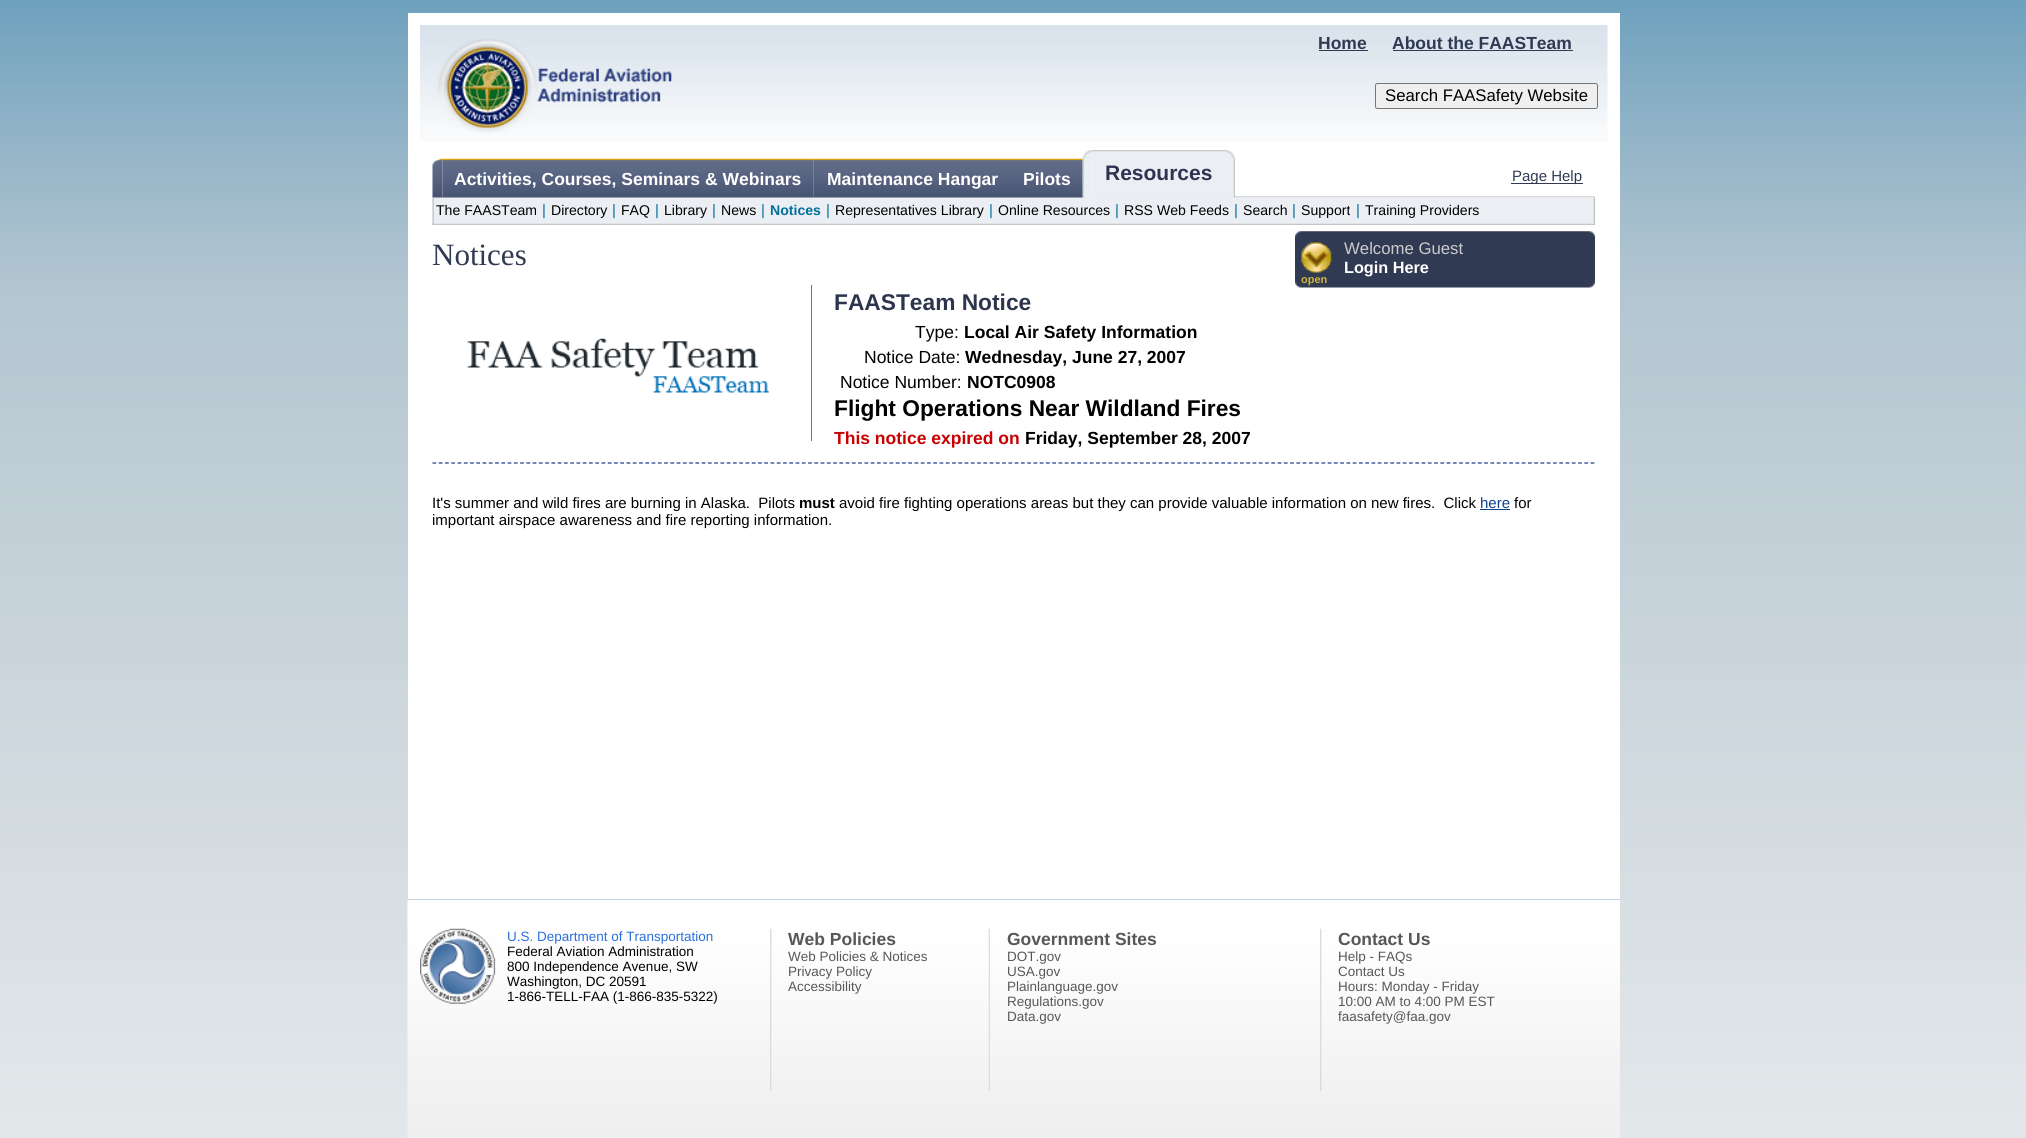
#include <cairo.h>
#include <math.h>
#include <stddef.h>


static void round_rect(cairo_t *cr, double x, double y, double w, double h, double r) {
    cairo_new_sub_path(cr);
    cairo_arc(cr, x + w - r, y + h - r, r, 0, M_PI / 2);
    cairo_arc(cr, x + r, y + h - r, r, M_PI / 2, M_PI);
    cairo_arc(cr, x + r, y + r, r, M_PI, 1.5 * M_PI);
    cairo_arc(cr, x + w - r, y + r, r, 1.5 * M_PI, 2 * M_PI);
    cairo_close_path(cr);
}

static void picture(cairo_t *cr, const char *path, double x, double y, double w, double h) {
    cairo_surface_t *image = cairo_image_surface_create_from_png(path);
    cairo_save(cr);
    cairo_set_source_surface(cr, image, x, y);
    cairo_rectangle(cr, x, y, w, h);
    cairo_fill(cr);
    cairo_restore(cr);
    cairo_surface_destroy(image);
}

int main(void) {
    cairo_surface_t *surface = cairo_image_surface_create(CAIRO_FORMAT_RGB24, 2026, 1138);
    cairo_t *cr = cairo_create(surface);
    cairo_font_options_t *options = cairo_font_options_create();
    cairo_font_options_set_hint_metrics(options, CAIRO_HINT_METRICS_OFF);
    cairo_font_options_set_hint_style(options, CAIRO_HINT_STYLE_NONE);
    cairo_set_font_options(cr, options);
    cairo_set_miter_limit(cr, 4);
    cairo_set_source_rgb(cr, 1, 1, 1);
    cairo_paint(cr);
    picture(cr, "img1.png", 0, 0, 2026, 1138);
    cairo_set_source_rgb(cr, 1, 1, 1);
    cairo_rectangle(cr, 408, 13, 1212, 886);
    cairo_fill(cr);
    picture(cr, "img2.png", 420, 25, 1188, 117);
    picture(cr, "img3.png", 437, 38, 235, 95);
    cairo_select_font_face(cr, "Liberation Sans", CAIRO_FONT_SLANT_NORMAL, CAIRO_FONT_WEIGHT_BOLD);
    cairo_set_font_size(cr, 17.5);
    cairo_set_source_rgb(cr, 0.188, 0.227, 0.322);
    cairo_move_to(cr, 1318, 49);
    cairo_show_text(cr, "Home");
    cairo_rectangle(cr, 1319, 50, 49, 1);
    cairo_fill(cr);
    cairo_move_to(cr, 1392, 49);
    cairo_show_text(cr, "About the FAASTeam");
    cairo_rectangle(cr, 1393, 50, 180, 1);
    cairo_fill(cr);
    cairo_set_source_rgb(cr, 0.937, 0.937, 0.937);
    round_rect(cr, 1375.5, 83.5, 222, 25, 2);
    cairo_fill_preserve(cr);
    cairo_set_source_rgb(cr, 0.463, 0.463, 0.463);
    cairo_set_line_width(cr, 1);
    cairo_stroke(cr);
    cairo_select_font_face(cr, "Liberation Sans", CAIRO_FONT_SLANT_NORMAL, CAIRO_FONT_WEIGHT_NORMAL);
    cairo_set_font_size(cr, 16.75);
    cairo_set_source_rgb(cr, 0, 0, 0);
    cairo_move_to(cr, 1385, 101);
    cairo_show_text(cr, "Search FAASafety Website");
    picture(cr, "img4.png", 432, 196, 1163, 2);
    picture(cr, "img12.png", 432, 197, 1163, 28);
    picture(cr, "img5.png", 432, 158, 11, 40);
    picture(cr, "img6.png", 442, 158, 372, 40);
    cairo_select_font_face(cr, "Liberation Sans", CAIRO_FONT_SLANT_NORMAL, CAIRO_FONT_WEIGHT_BOLD);
    cairo_set_font_size(cr, 17.5);
    cairo_set_source_rgb(cr, 1, 1, 1);
    cairo_move_to(cr, 454, 185);
    cairo_show_text(cr, "Activities, Courses, Seminars & Webinars");
    picture(cr, "img7.png", 813, 158, 197, 40);
    cairo_move_to(cr, 827, 185);
    cairo_show_text(cr, "Maintenance Hangar");
    picture(cr, "img9.png", 1082, 150, 11, 48);
    picture(cr, "img8.png", 1010, 158, 73, 40);
    cairo_move_to(cr, 1023, 185);
    cairo_show_text(cr, "Pilots");
    picture(cr, "img10.png", 1092, 150, 133, 48);
    cairo_set_font_size(cr, 21);
    cairo_set_source_rgb(cr, 0.188, 0.196, 0.322);
    cairo_move_to(cr, 1105, 180);
    cairo_show_text(cr, "Resources");
    picture(cr, "img11.png", 1225, 150, 10, 48);
    cairo_set_source_rgb(cr, 0.188, 0.227, 0.322);
    cairo_rectangle(cr, 1511, 183, 72, 1);
    cairo_fill(cr);
    cairo_select_font_face(cr, "Liberation Sans", CAIRO_FONT_SLANT_NORMAL, CAIRO_FONT_WEIGHT_NORMAL);
    cairo_set_font_size(cr, 15);
    cairo_move_to(cr, 1512, 181);
    cairo_show_text(cr, "Page Help");
    picture(cr, "img13.png", 432, 197, 2, 28);
    cairo_set_font_size(cr, 14.1);
    cairo_set_source_rgb(cr, 0, 0, 0);
    cairo_move_to(cr, 436, 215);
    cairo_show_text(cr, "The FAASTeam");
    cairo_set_font_size(cr, 15);
    cairo_set_source_rgb(cr, 0.008, 0.435, 0.612);
    cairo_move_to(cr, 542, 215);
    cairo_show_text(cr, "|");
    cairo_set_font_size(cr, 14.1);
    cairo_set_source_rgb(cr, 0, 0, 0);
    cairo_move_to(cr, 551, 215);
    cairo_show_text(cr, "Directory");
    cairo_set_font_size(cr, 15);
    cairo_set_source_rgb(cr, 0.008, 0.435, 0.612);
    cairo_move_to(cr, 612, 215);
    cairo_show_text(cr, "|");
    cairo_set_font_size(cr, 14.1);
    cairo_set_source_rgb(cr, 0, 0, 0);
    cairo_move_to(cr, 621, 215);
    cairo_show_text(cr, "FAQ");
    cairo_set_font_size(cr, 15);
    cairo_set_source_rgb(cr, 0.008, 0.435, 0.612);
    cairo_move_to(cr, 655, 215);
    cairo_show_text(cr, "|");
    cairo_set_font_size(cr, 14.1);
    cairo_set_source_rgb(cr, 0, 0, 0);
    cairo_move_to(cr, 664, 215);
    cairo_show_text(cr, "Library");
    cairo_set_font_size(cr, 15);
    cairo_set_source_rgb(cr, 0.008, 0.435, 0.612);
    cairo_move_to(cr, 712, 215);
    cairo_show_text(cr, "|");
    cairo_set_font_size(cr, 14.1);
    cairo_set_source_rgb(cr, 0, 0, 0);
    cairo_move_to(cr, 721, 215);
    cairo_show_text(cr, "News");
    cairo_set_font_size(cr, 15);
    cairo_set_source_rgb(cr, 0.008, 0.435, 0.612);
    cairo_move_to(cr, 761, 215);
    cairo_show_text(cr, "|");
    cairo_select_font_face(cr, "Liberation Sans", CAIRO_FONT_SLANT_NORMAL, CAIRO_FONT_WEIGHT_BOLD);
    cairo_set_font_size(cr, 14.1);
    cairo_move_to(cr, 770, 215);
    cairo_show_text(cr, "Notices");
    cairo_select_font_face(cr, "Liberation Sans", CAIRO_FONT_SLANT_NORMAL, CAIRO_FONT_WEIGHT_NORMAL);
    cairo_set_font_size(cr, 15);
    cairo_move_to(cr, 826, 215);
    cairo_show_text(cr, "|");
    cairo_set_font_size(cr, 14.1);
    cairo_set_source_rgb(cr, 0, 0, 0);
    cairo_move_to(cr, 835, 215);
    cairo_show_text(cr, "Representatives Library");
    cairo_set_font_size(cr, 15);
    cairo_set_source_rgb(cr, 0.008, 0.435, 0.612);
    cairo_move_to(cr, 989, 215);
    cairo_show_text(cr, "|");
    cairo_set_font_size(cr, 14.1);
    cairo_set_source_rgb(cr, 0, 0, 0);
    cairo_move_to(cr, 998, 215);
    cairo_show_text(cr, "Online Resources");
    cairo_set_font_size(cr, 15);
    cairo_set_source_rgb(cr, 0.008, 0.435, 0.612);
    cairo_move_to(cr, 1115, 215);
    cairo_show_text(cr, "|");
    cairo_set_font_size(cr, 14.1);
    cairo_set_source_rgb(cr, 0, 0, 0);
    cairo_move_to(cr, 1124, 215);
    cairo_show_text(cr, "RSS Web Feeds");
    cairo_set_font_size(cr, 15);
    cairo_set_source_rgb(cr, 0.008, 0.435, 0.612);
    cairo_move_to(cr, 1234, 215);
    cairo_show_text(cr, "|");
    cairo_set_font_size(cr, 14.1);
    cairo_set_source_rgb(cr, 0, 0, 0);
    cairo_move_to(cr, 1243, 215);
    cairo_show_text(cr, "Search");
    cairo_set_font_size(cr, 15);
    cairo_set_source_rgb(cr, 0.008, 0.435, 0.612);
    cairo_move_to(cr, 1292, 215);
    cairo_show_text(cr, "|");
    cairo_set_font_size(cr, 14.1);
    cairo_set_source_rgb(cr, 0, 0, 0);
    cairo_move_to(cr, 1301, 215);
    cairo_show_text(cr, "Support");
    cairo_set_font_size(cr, 15);
    cairo_set_source_rgb(cr, 0.008, 0.435, 0.612);
    cairo_move_to(cr, 1356, 215);
    cairo_show_text(cr, "|");
    cairo_set_font_size(cr, 14.1);
    cairo_set_source_rgb(cr, 0, 0, 0);
    cairo_move_to(cr, 1365, 215);
    cairo_show_text(cr, "Training Providers");
    picture(cr, "img14.png", 1593, 197, 2, 28);
    cairo_select_font_face(cr, "Liberation Serif", CAIRO_FONT_SLANT_NORMAL, CAIRO_FONT_WEIGHT_NORMAL);
    cairo_set_font_size(cr, 31);
    cairo_set_source_rgb(cr, 0.188, 0.227, 0.322);
    cairo_move_to(cr, 432, 265);
    cairo_show_text(cr, "Notices");
    picture(cr, "img15.png", 1295, 231, 300, 57);
    cairo_select_font_face(cr, "Liberation Sans", CAIRO_FONT_SLANT_NORMAL, CAIRO_FONT_WEIGHT_NORMAL);
    cairo_set_font_size(cr, 16.75);
    cairo_set_source_rgb(cr, 0.8, 0.8, 0.8);
    cairo_move_to(cr, 1344, 254);
    cairo_show_text(cr, "Welcome Guest");
    cairo_select_font_face(cr, "Liberation Sans", CAIRO_FONT_SLANT_NORMAL, CAIRO_FONT_WEIGHT_BOLD);
    cairo_set_font_size(cr, 16.25);
    cairo_set_source_rgb(cr, 1, 1, 1);
    cairo_move_to(cr, 1344, 273);
    cairo_show_text(cr, "Login Here");
    picture(cr, "img16.png", 1301, 242, 31, 31);
    cairo_set_font_size(cr, 11);
    cairo_set_source_rgb(cr, 0.82, 0.706, 0.235);
    cairo_move_to(cr, 1301, 283);
    cairo_show_text(cr, "open");
    picture(cr, "img17.png", 467, 338, 302, 55);
    cairo_set_source_rgb(cr, 0.353, 0.463, 0.69);
    cairo_rectangle(cr, 811, 285, 1, 156);
    cairo_fill(cr);
    cairo_set_font_size(cr, 22.75);
    cairo_set_source_rgb(cr, 0.173, 0.208, 0.298);
    cairo_move_to(cr, 834, 310);
    cairo_show_text(cr, "FAASTeam Notice");
    cairo_select_font_face(cr, "Liberation Sans", CAIRO_FONT_SLANT_NORMAL, CAIRO_FONT_WEIGHT_NORMAL);
    cairo_set_font_size(cr, 17.5);
    cairo_set_source_rgb(cr, 0, 0, 0);
    cairo_move_to(cr, 915, 338);
    cairo_show_text(cr, "Type:");
    cairo_select_font_face(cr, "Liberation Sans", CAIRO_FONT_SLANT_NORMAL, CAIRO_FONT_WEIGHT_BOLD);
    cairo_move_to(cr, 964, 338);
    cairo_show_text(cr, "Local Air Safety Information");
    cairo_select_font_face(cr, "Liberation Sans", CAIRO_FONT_SLANT_NORMAL, CAIRO_FONT_WEIGHT_NORMAL);
    cairo_move_to(cr, 864, 363);
    cairo_show_text(cr, "Notice Date:");
    cairo_select_font_face(cr, "Liberation Sans", CAIRO_FONT_SLANT_NORMAL, CAIRO_FONT_WEIGHT_BOLD);
    cairo_move_to(cr, 965, 363);
    cairo_show_text(cr, "Wednesday, June 27, 2007");
    cairo_select_font_face(cr, "Liberation Sans", CAIRO_FONT_SLANT_NORMAL, CAIRO_FONT_WEIGHT_NORMAL);
    cairo_move_to(cr, 840, 388);
    cairo_show_text(cr, "Notice Number:");
    cairo_select_font_face(cr, "Liberation Sans", CAIRO_FONT_SLANT_NORMAL, CAIRO_FONT_WEIGHT_BOLD);
    cairo_move_to(cr, 967, 388);
    cairo_show_text(cr, "NOTC0908");
    cairo_set_font_size(cr, 22.75);
    cairo_move_to(cr, 834, 416);
    cairo_show_text(cr, "Flight Operations Near Wildland Fires");
    cairo_set_font_size(cr, 17.5);
    cairo_set_source_rgb(cr, 0.788, 0, 0);
    cairo_move_to(cr, 834, 444);
    cairo_show_text(cr, "This notice expired on");
    cairo_set_source_rgb(cr, 0, 0, 0);
    cairo_move_to(cr, 1025, 444);
    cairo_show_text(cr, "Friday, September 28, 2007");
    cairo_new_path(cr);
    cairo_move_to(cr, 432.5, 463);
    cairo_line_to(cr, 1595, 463);
    cairo_set_source_rgb(cr, 0.098, 0.22, 0.533);
    cairo_set_line_width(cr, 1.2);
    cairo_set_dash(cr, (double[]){3.75, 2.51}, 2, 0);
    cairo_stroke(cr);
    cairo_select_font_face(cr, "Liberation Sans", CAIRO_FONT_SLANT_NORMAL, CAIRO_FONT_WEIGHT_NORMAL);
    cairo_set_font_size(cr, 15);
    cairo_set_source_rgb(cr, 0, 0, 0);
    cairo_move_to(cr, 432, 508);
    cairo_show_text(cr, "It's summer and wild fires are burning in Alaska.  Pilots");
    cairo_select_font_face(cr, "Liberation Sans", CAIRO_FONT_SLANT_NORMAL, CAIRO_FONT_WEIGHT_BOLD);
    cairo_move_to(cr, 799, 508);
    cairo_show_text(cr, "must");
    cairo_select_font_face(cr, "Liberation Sans", CAIRO_FONT_SLANT_NORMAL, CAIRO_FONT_WEIGHT_NORMAL);
    cairo_move_to(cr, 839, 508);
    cairo_show_text(cr, "avoid fire fighting operations areas but they can provide valuable information on new fires.  Click");
    cairo_set_source_rgb(cr, 0.055, 0.259, 0.553);
    cairo_move_to(cr, 1480, 508);
    cairo_show_text(cr, "here");
    cairo_rectangle(cr, 1480, 509, 30, 1);
    cairo_fill(cr);
    cairo_set_source_rgb(cr, 0, 0, 0);
    cairo_move_to(cr, 1514, 508);
    cairo_show_text(cr, "for");
    cairo_move_to(cr, 432, 525);
    cairo_show_text(cr, "important airspace awareness and fire reporting information.");
    picture(cr, "img18.png", 407, 900, 1213, 238);
    cairo_set_source_rgb(cr, 0.765, 0.824, 0.875);
    cairo_rectangle(cr, 408, 899, 1212, 1);
    cairo_fill(cr);
    picture(cr, "img19.png", 420, 928, 76, 76);
    cairo_set_font_size(cr, 13.5);
    cairo_set_source_rgb(cr, 0.157, 0.439, 0.875);
    cairo_move_to(cr, 507, 941);
    cairo_show_text(cr, "U.S. Department of Transportation");
    cairo_set_source_rgb(cr, 0, 0, 0);
    cairo_move_to(cr, 507, 956);
    cairo_show_text(cr, "Federal Aviation Administration");
    cairo_move_to(cr, 507, 971);
    cairo_show_text(cr, "800 Independence Avenue, SW");
    cairo_move_to(cr, 507, 986);
    cairo_show_text(cr, "Washington, DC 20591");
    cairo_move_to(cr, 507, 1001);
    cairo_show_text(cr, "1-866-TELL-FAA (1-866-835-5322)");
    picture(cr, "img20.png", 770, 928, 2, 164);
    cairo_select_font_face(cr, "Liberation Sans", CAIRO_FONT_SLANT_NORMAL, CAIRO_FONT_WEIGHT_BOLD);
    cairo_set_font_size(cr, 17.5);
    cairo_set_source_rgb(cr, 0.341, 0.341, 0.341);
    cairo_move_to(cr, 788, 945);
    cairo_show_text(cr, "Web Policies");
    cairo_select_font_face(cr, "Liberation Sans", CAIRO_FONT_SLANT_NORMAL, CAIRO_FONT_WEIGHT_NORMAL);
    cairo_set_font_size(cr, 13.5);
    cairo_move_to(cr, 788, 961);
    cairo_show_text(cr, "Web Policies & Notices");
    cairo_move_to(cr, 788, 976);
    cairo_show_text(cr, "Privacy Policy");
    cairo_move_to(cr, 788, 991);
    cairo_show_text(cr, "Accessibility");
    picture(cr, "img21.png", 988, 928, 2, 163);
    cairo_select_font_face(cr, "Liberation Sans", CAIRO_FONT_SLANT_NORMAL, CAIRO_FONT_WEIGHT_BOLD);
    cairo_set_font_size(cr, 17.5);
    cairo_move_to(cr, 1007, 945);
    cairo_show_text(cr, "Government Sites");
    cairo_select_font_face(cr, "Liberation Sans", CAIRO_FONT_SLANT_NORMAL, CAIRO_FONT_WEIGHT_NORMAL);
    cairo_set_font_size(cr, 13.5);
    cairo_move_to(cr, 1007, 961);
    cairo_show_text(cr, "DOT.gov");
    cairo_move_to(cr, 1007, 976);
    cairo_show_text(cr, "USA.gov");
    cairo_move_to(cr, 1007, 991);
    cairo_show_text(cr, "Plainlanguage.gov");
    cairo_move_to(cr, 1007, 1006);
    cairo_show_text(cr, "Regulations.gov");
    cairo_move_to(cr, 1007, 1021);
    cairo_show_text(cr, "Data.gov");
    picture(cr, "img20.png", 1320, 928, 2, 164);
    cairo_select_font_face(cr, "Liberation Sans", CAIRO_FONT_SLANT_NORMAL, CAIRO_FONT_WEIGHT_BOLD);
    cairo_set_font_size(cr, 17.5);
    cairo_move_to(cr, 1338, 945);
    cairo_show_text(cr, "Contact Us");
    cairo_select_font_face(cr, "Liberation Sans", CAIRO_FONT_SLANT_NORMAL, CAIRO_FONT_WEIGHT_NORMAL);
    cairo_set_font_size(cr, 13.5);
    cairo_move_to(cr, 1338, 961);
    cairo_show_text(cr, "Help - FAQs");
    cairo_move_to(cr, 1338, 976);
    cairo_show_text(cr, "Contact Us");
    cairo_move_to(cr, 1338, 991);
    cairo_show_text(cr, "Hours: Monday - Friday");
    cairo_move_to(cr, 1338, 1006);
    cairo_show_text(cr, "10:00 AM to 4:00 PM EST");
    cairo_move_to(cr, 1338, 1021);
    cairo_show_text(cr, "faasafety@faa.gov");
    cairo_surface_write_to_png(surface, "page.png");
    cairo_font_options_destroy(options);
    cairo_destroy(cr);
    cairo_surface_destroy(surface);
    return 0;
}
